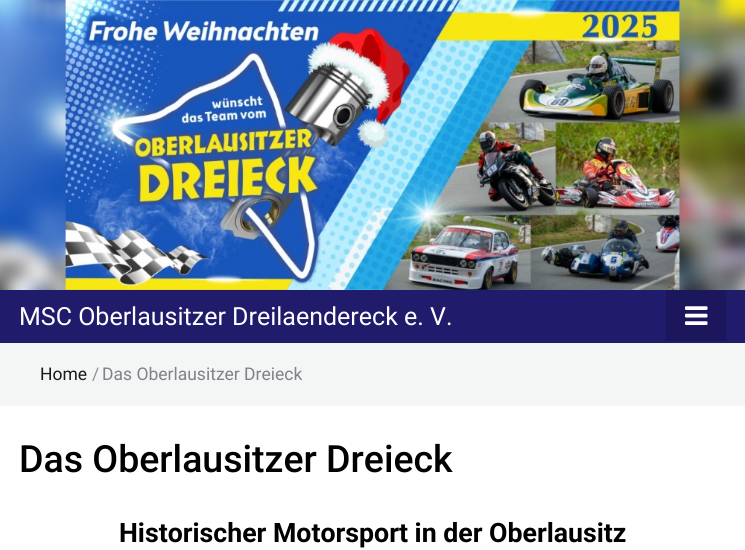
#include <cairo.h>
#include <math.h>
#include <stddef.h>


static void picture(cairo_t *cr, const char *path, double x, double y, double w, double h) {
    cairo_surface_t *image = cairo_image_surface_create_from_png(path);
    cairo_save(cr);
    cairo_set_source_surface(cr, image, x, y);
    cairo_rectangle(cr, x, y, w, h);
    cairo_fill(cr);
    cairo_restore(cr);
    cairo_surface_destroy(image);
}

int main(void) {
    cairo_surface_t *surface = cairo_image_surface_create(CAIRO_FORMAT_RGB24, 745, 550);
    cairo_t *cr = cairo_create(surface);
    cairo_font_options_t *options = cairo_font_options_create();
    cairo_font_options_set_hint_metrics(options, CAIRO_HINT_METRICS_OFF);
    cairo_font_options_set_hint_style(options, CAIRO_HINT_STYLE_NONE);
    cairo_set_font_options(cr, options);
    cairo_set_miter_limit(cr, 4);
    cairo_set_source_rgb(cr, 1, 1, 1);
    cairo_paint(cr);
    picture(cr, "img1.png", 0, 0, 745, 290);
    cairo_set_source_rgb(cr, 0.129, 0.106, 0.424);
    cairo_rectangle(cr, 0, 290, 745, 53);
    cairo_fill(cr);
    cairo_select_font_face(cr, "Roboto", CAIRO_FONT_SLANT_NORMAL, CAIRO_FONT_WEIGHT_NORMAL);
    cairo_set_font_size(cr, 25);
    cairo_set_source_rgb(cr, 1, 1, 1);
    cairo_move_to(cr, 19, 325);
    cairo_show_text(cr, "MSC Oberlausitzer Dreilaendereck e. V.");
    cairo_set_source_rgb(cr, 0.11, 0.09, 0.361);
    cairo_rectangle(cr, 666, 290, 60, 51);
    cairo_fill(cr);
    picture(cr, "img2.png", 685, 306, 23, 19);
    cairo_set_source_rgb(cr, 0.957, 0.961, 0.961);
    cairo_rectangle(cr, 0, 343, 745, 63);
    cairo_fill(cr);
    cairo_set_font_size(cr, 17.5);
    cairo_set_source_rgb(cr, 0.094, 0.098, 0.098);
    cairo_move_to(cr, 40, 380);
    cairo_show_text(cr, "Home");
    cairo_set_source_rgb(cr, 0.537, 0.557, 0.576);
    cairo_move_to(cr, 92, 380);
    cairo_show_text(cr, "/");
    cairo_set_source_rgb(cr, 0.49, 0.514, 0.533);
    cairo_move_to(cr, 102, 380);
    cairo_show_text(cr, "Das Oberlausitzer Dreieck");
    cairo_select_font_face(cr, "Roboto Medium", CAIRO_FONT_SLANT_NORMAL, CAIRO_FONT_WEIGHT_NORMAL);
    cairo_set_font_size(cr, 37.5);
    cairo_set_source_rgb(cr, 0, 0, 0);
    cairo_move_to(cr, 19, 472);
    cairo_show_text(cr, "Das Oberlausitzer Dreieck");
    cairo_select_font_face(cr, "Roboto", CAIRO_FONT_SLANT_NORMAL, CAIRO_FONT_WEIGHT_BOLD);
    cairo_set_font_size(cr, 26.7);
    cairo_move_to(cr, 119, 542);
    cairo_show_text(cr, "Historischer Motorsport in der Oberlausitz");
    cairo_surface_write_to_png(surface, "page.png");
    cairo_font_options_destroy(options);
    cairo_destroy(cr);
    cairo_surface_destroy(surface);
    return 0;
}
